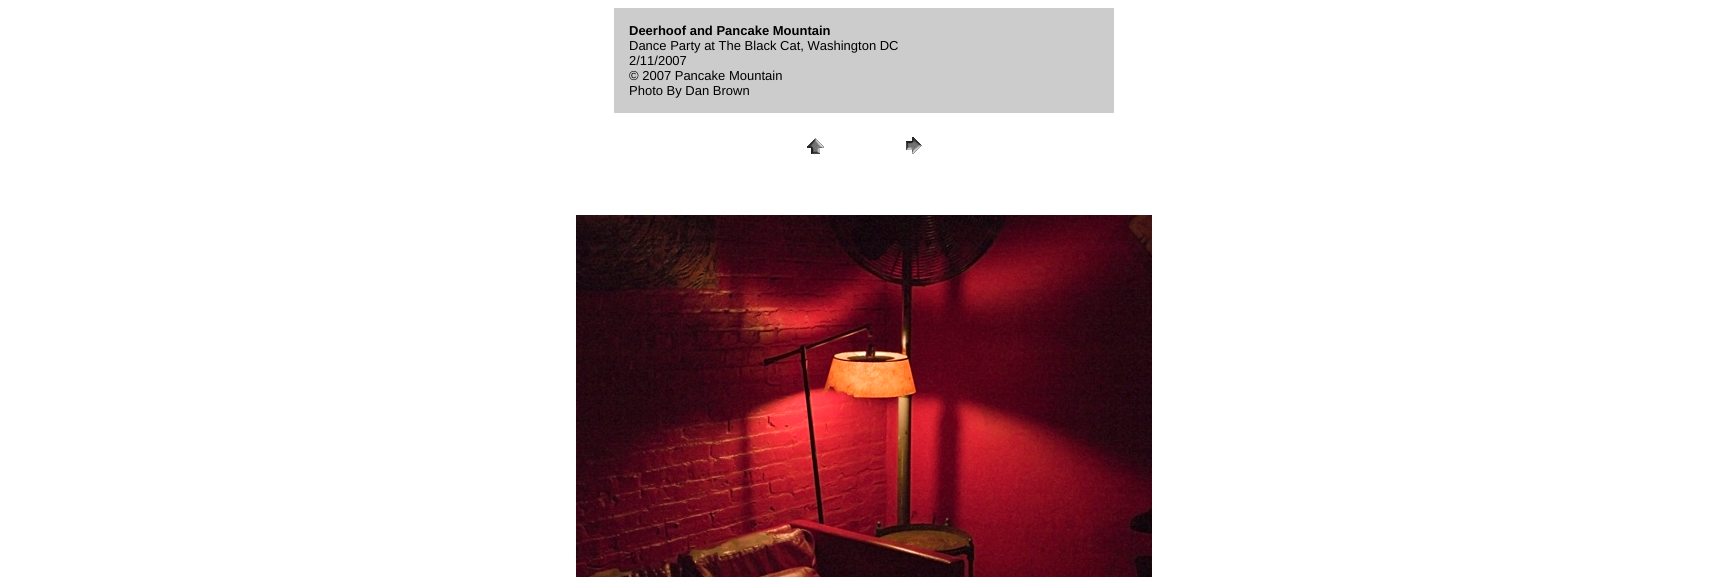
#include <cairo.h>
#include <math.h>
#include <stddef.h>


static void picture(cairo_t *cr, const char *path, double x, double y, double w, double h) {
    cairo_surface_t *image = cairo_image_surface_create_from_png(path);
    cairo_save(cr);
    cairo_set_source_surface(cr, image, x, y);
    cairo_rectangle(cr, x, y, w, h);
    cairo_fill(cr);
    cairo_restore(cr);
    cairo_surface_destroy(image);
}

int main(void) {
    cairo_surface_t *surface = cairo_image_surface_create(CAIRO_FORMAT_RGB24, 1728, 577);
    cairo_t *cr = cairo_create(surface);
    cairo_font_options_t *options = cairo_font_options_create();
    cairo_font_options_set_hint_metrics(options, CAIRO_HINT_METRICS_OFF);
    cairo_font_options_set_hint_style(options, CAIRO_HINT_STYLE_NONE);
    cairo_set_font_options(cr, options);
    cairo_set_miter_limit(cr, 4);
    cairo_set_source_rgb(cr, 1, 1, 1);
    cairo_paint(cr);
    cairo_set_source_rgb(cr, 0.8, 0.8, 0.8);
    cairo_rectangle(cr, 614, 8, 500, 105);
    cairo_fill(cr);
    cairo_select_font_face(cr, "Liberation Sans", CAIRO_FONT_SLANT_NORMAL, CAIRO_FONT_WEIGHT_BOLD);
    cairo_set_font_size(cr, 13);
    cairo_set_source_rgb(cr, 0, 0, 0);
    cairo_move_to(cr, 629, 35);
    cairo_show_text(cr, "Deerhoof and Pancake Mountain");
    cairo_select_font_face(cr, "Liberation Sans", CAIRO_FONT_SLANT_NORMAL, CAIRO_FONT_WEIGHT_NORMAL);
    cairo_move_to(cr, 629, 50);
    cairo_show_text(cr, "Dance Party at The Black Cat, Washington DC");
    cairo_move_to(cr, 629, 65);
    cairo_show_text(cr, "2/11/2007");
    cairo_move_to(cr, 629, 80);
    cairo_show_text(cr, "© 2007 Pancake Mountain");
    cairo_move_to(cr, 629, 95);
    cairo_show_text(cr, "Photo By Dan Brown");
    picture(cr, "img1.png", 807, 138, 17, 16);
    picture(cr, "img2.png", 906, 137, 16, 17);
    picture(cr, "img3.png", 572, 211, 584, 366);
    cairo_surface_write_to_png(surface, "page.png");
    cairo_font_options_destroy(options);
    cairo_destroy(cr);
    cairo_surface_destroy(surface);
    return 0;
}
